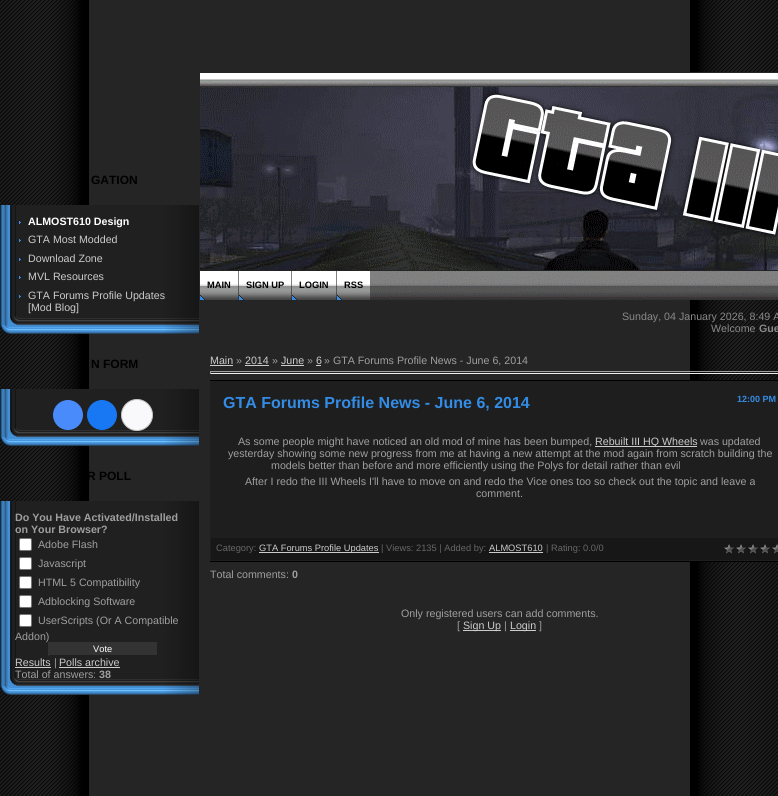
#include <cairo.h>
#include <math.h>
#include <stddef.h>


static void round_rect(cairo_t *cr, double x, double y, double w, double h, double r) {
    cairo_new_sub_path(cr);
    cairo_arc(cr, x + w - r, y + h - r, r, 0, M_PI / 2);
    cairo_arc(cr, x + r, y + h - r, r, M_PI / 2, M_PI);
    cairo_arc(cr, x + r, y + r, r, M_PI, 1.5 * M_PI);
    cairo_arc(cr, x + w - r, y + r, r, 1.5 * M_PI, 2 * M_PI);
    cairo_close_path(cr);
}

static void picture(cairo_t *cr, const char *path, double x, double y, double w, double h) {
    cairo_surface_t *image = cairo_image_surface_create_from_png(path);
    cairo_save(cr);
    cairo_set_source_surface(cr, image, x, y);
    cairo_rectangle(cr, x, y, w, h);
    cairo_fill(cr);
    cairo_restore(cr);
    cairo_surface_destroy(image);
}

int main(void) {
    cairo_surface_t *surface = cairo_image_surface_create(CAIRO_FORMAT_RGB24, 778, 796);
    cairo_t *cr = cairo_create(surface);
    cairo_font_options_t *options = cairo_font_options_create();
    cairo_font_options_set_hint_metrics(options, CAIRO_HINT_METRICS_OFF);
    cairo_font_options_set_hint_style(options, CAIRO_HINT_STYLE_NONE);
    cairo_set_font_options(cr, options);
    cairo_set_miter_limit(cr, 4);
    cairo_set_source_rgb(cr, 1, 1, 1);
    cairo_paint(cr);
    picture(cr, "img1.png", 0, 0, 778, 796);
    cairo_select_font_face(cr, "Liberation Sans", CAIRO_FONT_SLANT_NORMAL, CAIRO_FONT_WEIGHT_BOLD);
    cairo_set_font_size(cr, 12);
    cairo_set_source_rgb(cr, 0, 0, 0);
    cairo_move_to(cr, 91, 184);
    cairo_show_text(cr, "GATION");
    picture(cr, "img2.png", 0, 205, 199, 129);
    picture(cr, "img3.png", 19, 221, 2, 3);
    cairo_set_font_size(cr, 10.67);
    cairo_set_source_rgb(cr, 1, 1, 1);
    cairo_move_to(cr, 28, 225);
    cairo_show_text(cr, "ALMOST610 Design");
    picture(cr, "img3.png", 19, 239, 2, 3);
    cairo_select_font_face(cr, "Liberation Sans", CAIRO_FONT_SLANT_NORMAL, CAIRO_FONT_WEIGHT_NORMAL);
    cairo_set_source_rgb(cr, 0.8, 0.8, 0.8);
    cairo_move_to(cr, 28, 243);
    cairo_show_text(cr, "GTA Most Modded");
    picture(cr, "img3.png", 19, 258, 2, 3);
    cairo_move_to(cr, 28, 262);
    cairo_show_text(cr, "Download Zone");
    picture(cr, "img3.png", 19, 276, 2, 3);
    cairo_move_to(cr, 28, 280);
    cairo_show_text(cr, "MVL Resources");
    picture(cr, "img3.png", 19, 295, 2, 3);
    cairo_move_to(cr, 28, 299);
    cairo_show_text(cr, "GTA Forums Profile Updates");
    cairo_move_to(cr, 28, 311);
    cairo_show_text(cr, "[Mod Blog]");
    cairo_select_font_face(cr, "Liberation Sans", CAIRO_FONT_SLANT_NORMAL, CAIRO_FONT_WEIGHT_BOLD);
    cairo_set_font_size(cr, 12);
    cairo_set_source_rgb(cr, 0, 0, 0);
    cairo_move_to(cr, 91, 368);
    cairo_show_text(cr, "N FORM");
    picture(cr, "img4.png", 0, 389, 199, 57);
    cairo_set_source_rgb(cr, 0.286, 0.545, 0.98);
    cairo_arc(cr, 68, 415, 15, 0, 2 * M_PI);
    cairo_fill(cr);
    cairo_set_source_rgb(cr, 0.094, 0.467, 0.949);
    cairo_arc(cr, 102, 415, 15, 0, 2 * M_PI);
    cairo_fill(cr);
    cairo_set_source_rgb(cr, 0.973, 0.973, 0.988);
    cairo_arc(cr, 137, 415, 15.5, 0, 2 * M_PI);
    cairo_fill_preserve(cr);
    cairo_set_source_rgb(cr, 0.769, 0.769, 0.769);
    cairo_set_line_width(cr, 1);
    cairo_stroke(cr);
    cairo_set_source_rgb(cr, 0, 0, 0);
    cairo_move_to(cr, 87, 480);
    cairo_show_text(cr, "R POLL");
    picture(cr, "img5.png", 0, 501, 199, 194);
    cairo_set_font_size(cr, 10.67);
    cairo_set_source_rgb(cr, 0.624, 0.624, 0.624);
    cairo_move_to(cr, 15, 521);
    cairo_show_text(cr, "Do You Have Activated/Installed");
    cairo_move_to(cr, 15, 533);
    cairo_show_text(cr, "on Your Browser?");
    cairo_set_source_rgb(cr, 1, 1, 1);
    round_rect(cr, 19.5, 538.5, 12, 12, 1.5);
    cairo_fill_preserve(cr);
    cairo_set_source_rgb(cr, 0.463, 0.463, 0.463);
    cairo_stroke(cr);
    cairo_select_font_face(cr, "Liberation Sans", CAIRO_FONT_SLANT_NORMAL, CAIRO_FONT_WEIGHT_NORMAL);
    cairo_set_source_rgb(cr, 0.624, 0.624, 0.624);
    cairo_move_to(cr, 38, 548);
    cairo_show_text(cr, "Adobe Flash");
    cairo_set_source_rgb(cr, 1, 1, 1);
    round_rect(cr, 19.5, 557.5, 12, 12, 1.5);
    cairo_fill_preserve(cr);
    cairo_set_source_rgb(cr, 0.463, 0.463, 0.463);
    cairo_stroke(cr);
    cairo_set_source_rgb(cr, 0.624, 0.624, 0.624);
    cairo_move_to(cr, 38, 567);
    cairo_show_text(cr, "Javascript");
    cairo_set_source_rgb(cr, 1, 1, 1);
    round_rect(cr, 19.5, 576.5, 12, 12, 1.5);
    cairo_fill_preserve(cr);
    cairo_set_source_rgb(cr, 0.463, 0.463, 0.463);
    cairo_stroke(cr);
    cairo_set_source_rgb(cr, 0.624, 0.624, 0.624);
    cairo_move_to(cr, 38, 586);
    cairo_show_text(cr, "HTML 5 Compatibility");
    cairo_set_source_rgb(cr, 1, 1, 1);
    round_rect(cr, 19.5, 595.5, 12, 12, 1.5);
    cairo_fill_preserve(cr);
    cairo_set_source_rgb(cr, 0.463, 0.463, 0.463);
    cairo_stroke(cr);
    cairo_set_source_rgb(cr, 0.624, 0.624, 0.624);
    cairo_move_to(cr, 38, 605);
    cairo_show_text(cr, "Adblocking Software");
    cairo_set_source_rgb(cr, 1, 1, 1);
    round_rect(cr, 19.5, 614.5, 12, 12, 1.5);
    cairo_fill_preserve(cr);
    cairo_set_source_rgb(cr, 0.463, 0.463, 0.463);
    cairo_stroke(cr);
    cairo_set_source_rgb(cr, 0.624, 0.624, 0.624);
    cairo_move_to(cr, 38, 624);
    cairo_show_text(cr, "UserScripts (Or A Compatible");
    cairo_move_to(cr, 15, 640);
    cairo_show_text(cr, "Addon)");
    cairo_set_source_rgb(cr, 0.2, 0.2, 0.2);
    cairo_rectangle(cr, 49, 642, 108, 13);
    cairo_fill(cr);
    cairo_rectangle(cr, 48, 642, 1, 14);
    cairo_fill(cr);
    cairo_set_font_size(cr, 9.3);
    cairo_set_source_rgb(cr, 1, 1, 1);
    cairo_move_to(cr, 93, 652);
    cairo_show_text(cr, "Vote");
    cairo_set_font_size(cr, 10.67);
    cairo_set_source_rgb(cr, 0.8, 0.8, 0.8);
    cairo_move_to(cr, 15, 666);
    cairo_show_text(cr, "Results");
    cairo_rectangle(cr, 15, 667, 36, 1);
    cairo_fill(cr);
    cairo_set_source_rgb(cr, 0.624, 0.624, 0.624);
    cairo_move_to(cr, 54, 666);
    cairo_show_text(cr, "|");
    cairo_set_source_rgb(cr, 0.8, 0.8, 0.8);
    cairo_move_to(cr, 59, 666);
    cairo_show_text(cr, "Polls archive");
    cairo_rectangle(cr, 59, 667, 61, 1);
    cairo_fill(cr);
    cairo_set_source_rgb(cr, 0.624, 0.624, 0.624);
    cairo_move_to(cr, 15, 678);
    cairo_show_text(cr, "Total of answers:");
    cairo_select_font_face(cr, "Liberation Sans", CAIRO_FONT_SLANT_NORMAL, CAIRO_FONT_WEIGHT_BOLD);
    cairo_move_to(cr, 99, 678);
    cairo_show_text(cr, "38");
    picture(cr, "img6.png", 200, 72, 578, 228);
    picture(cr, "img7.png", 200, 271, 38, 29);
    cairo_set_font_size(cr, 9.3);
    cairo_set_source_rgb(cr, 0, 0, 0);
    cairo_move_to(cr, 207, 288);
    cairo_show_text(cr, "MAIN");
    picture(cr, "img8.png", 239, 271, 52, 29);
    cairo_move_to(cr, 246, 288);
    cairo_show_text(cr, "SIGN UP");
    picture(cr, "img9.png", 292, 271, 44, 29);
    cairo_move_to(cr, 299, 288);
    cairo_show_text(cr, "LOGIN");
    picture(cr, "img10.png", 337, 271, 33, 29);
    cairo_move_to(cr, 344, 288);
    cairo_show_text(cr, "RSS");
    cairo_select_font_face(cr, "Liberation Sans", CAIRO_FONT_SLANT_NORMAL, CAIRO_FONT_WEIGHT_NORMAL);
    cairo_set_font_size(cr, 10.67);
    cairo_set_source_rgb(cr, 0.537, 0.537, 0.537);
    cairo_move_to(cr, 622, 320);
    cairo_show_text(cr, "Sunday, 04 January 2026, 8:49 A");
    cairo_move_to(cr, 711, 332);
    cairo_show_text(cr, "Welcome");
    cairo_select_font_face(cr, "Liberation Sans", CAIRO_FONT_SLANT_NORMAL, CAIRO_FONT_WEIGHT_BOLD);
    cairo_move_to(cr, 759, 332);
    cairo_show_text(cr, "Gue");
    cairo_select_font_face(cr, "Liberation Sans", CAIRO_FONT_SLANT_NORMAL, CAIRO_FONT_WEIGHT_NORMAL);
    cairo_set_source_rgb(cr, 0.8, 0.8, 0.8);
    cairo_move_to(cr, 210, 364);
    cairo_show_text(cr, "Main");
    cairo_rectangle(cr, 210, 365, 23, 1);
    cairo_fill(cr);
    cairo_set_source_rgb(cr, 0.624, 0.624, 0.624);
    cairo_move_to(cr, 236, 364);
    cairo_show_text(cr, "»");
    cairo_set_source_rgb(cr, 0.8, 0.8, 0.8);
    cairo_move_to(cr, 245, 364);
    cairo_show_text(cr, "2014");
    cairo_rectangle(cr, 245, 365, 24, 1);
    cairo_fill(cr);
    cairo_set_source_rgb(cr, 0.624, 0.624, 0.624);
    cairo_move_to(cr, 272, 364);
    cairo_show_text(cr, "»");
    cairo_set_source_rgb(cr, 0.8, 0.8, 0.8);
    cairo_move_to(cr, 281, 364);
    cairo_show_text(cr, "June");
    cairo_rectangle(cr, 281, 365, 23, 1);
    cairo_fill(cr);
    cairo_set_source_rgb(cr, 0.624, 0.624, 0.624);
    cairo_move_to(cr, 307, 364);
    cairo_show_text(cr, "»");
    cairo_set_source_rgb(cr, 0.8, 0.8, 0.8);
    cairo_move_to(cr, 316, 364);
    cairo_show_text(cr, "6");
    cairo_rectangle(cr, 316, 365, 5, 1);
    cairo_fill(cr);
    cairo_set_source_rgb(cr, 0.624, 0.624, 0.624);
    cairo_move_to(cr, 324, 364);
    cairo_show_text(cr, "» GTA Forums Profile News - June 6, 2014");
    cairo_rectangle(cr, 210, 371, 568, 1);
    cairo_fill(cr);
    cairo_set_source_rgb(cr, 0.933, 0.933, 0.933);
    cairo_rectangle(cr, 210, 373, 568, 1);
    cairo_fill(cr);
    cairo_set_source_rgb(cr, 0.624, 0.624, 0.624);
    cairo_rectangle(cr, 210, 371, 1, 3);
    cairo_fill(cr);
    cairo_set_source_rgb(cr, 0.118, 0.118, 0.118);
    cairo_rectangle(cr, 210, 381, 568, 180);
    cairo_fill(cr);
    cairo_set_source_rgb(cr, 0, 0, 0);
    cairo_rectangle(cr, 210, 380, 568, 1);
    cairo_fill(cr);
    cairo_rectangle(cr, 210, 561, 568, 1);
    cairo_fill(cr);
    cairo_select_font_face(cr, "Liberation Sans", CAIRO_FONT_SLANT_NORMAL, CAIRO_FONT_WEIGHT_BOLD);
    cairo_set_font_size(cr, 16);
    cairo_set_source_rgb(cr, 0.2, 0.549, 0.902);
    cairo_move_to(cr, 223, 408);
    cairo_show_text(cr, "GTA Forums Profile News - June 6, 2014");
    cairo_set_font_size(cr, 9);
    cairo_move_to(cr, 737, 402);
    cairo_show_text(cr, "12:00 PM");
    cairo_select_font_face(cr, "Liberation Sans", CAIRO_FONT_SLANT_NORMAL, CAIRO_FONT_WEIGHT_NORMAL);
    cairo_set_font_size(cr, 10.67);
    cairo_set_source_rgb(cr, 0.624, 0.624, 0.624);
    cairo_move_to(cr, 238, 445);
    cairo_show_text(cr, "As some people might have noticed an old mod of mine has been bumped,");
    cairo_set_source_rgb(cr, 0.8, 0.8, 0.8);
    cairo_rectangle(cr, 595, 446, 102, 1);
    cairo_fill(cr);
    cairo_move_to(cr, 595, 445);
    cairo_show_text(cr, "Rebuilt III HQ Wheels");
    cairo_set_source_rgb(cr, 0.624, 0.624, 0.624);
    cairo_move_to(cr, 700, 445);
    cairo_show_text(cr, "was updated");
    cairo_move_to(cr, 228, 457);
    cairo_show_text(cr, "yesterday showing some new progress from me at having a new attempt at the mod again from scratch building the");
    cairo_move_to(cr, 271, 469);
    cairo_show_text(cr, "models better than before and more efficiently using the Polys for detail rather than evil");
    cairo_move_to(cr, 245, 485);
    cairo_show_text(cr, "After I redo the III Wheels I'll have to move on and redo the Vice ones too so check out the topic and leave a");
    cairo_move_to(cr, 476, 497);
    cairo_show_text(cr, "comment.");
    cairo_set_source_rgb(cr, 0.09, 0.09, 0.09);
    cairo_rectangle(cr, 211, 538, 567, 22);
    cairo_fill(cr);
    cairo_set_font_size(cr, 9.3);
    cairo_set_source_rgb(cr, 0.4, 0.4, 0.4);
    cairo_move_to(cr, 216, 551);
    cairo_show_text(cr, "Category:");
    cairo_set_source_rgb(cr, 0.8, 0.8, 0.8);
    cairo_rectangle(cr, 259, 552, 120, 1);
    cairo_fill(cr);
    cairo_move_to(cr, 259, 551);
    cairo_show_text(cr, "GTA Forums Profile Updates");
    cairo_set_source_rgb(cr, 0.4, 0.4, 0.4);
    cairo_move_to(cr, 381, 551);
    cairo_show_text(cr, "| Views: 2135 | Added by:");
    cairo_set_source_rgb(cr, 0.8, 0.8, 0.8);
    cairo_move_to(cr, 489, 551);
    cairo_show_text(cr, "ALMOST610");
    cairo_rectangle(cr, 489, 552, 54, 1);
    cairo_fill(cr);
    cairo_set_source_rgb(cr, 0.4, 0.4, 0.4);
    cairo_move_to(cr, 546, 551);
    cairo_show_text(cr, "| Rating: 0.0/0");
    picture(cr, "img11.png", 724, 544, 54, 10);
    cairo_set_font_size(cr, 10.67);
    cairo_set_source_rgb(cr, 0.624, 0.624, 0.624);
    cairo_move_to(cr, 210, 578);
    cairo_show_text(cr, "Total comments:");
    cairo_select_font_face(cr, "Liberation Sans", CAIRO_FONT_SLANT_NORMAL, CAIRO_FONT_WEIGHT_BOLD);
    cairo_move_to(cr, 292, 578);
    cairo_show_text(cr, "0");
    cairo_select_font_face(cr, "Liberation Sans", CAIRO_FONT_SLANT_NORMAL, CAIRO_FONT_WEIGHT_NORMAL);
    cairo_move_to(cr, 401, 617);
    cairo_show_text(cr, "Only registered users can add comments.");
    cairo_move_to(cr, 457, 629);
    cairo_show_text(cr, "[");
    cairo_set_source_rgb(cr, 0.8, 0.8, 0.8);
    cairo_rectangle(cr, 463, 630, 38, 1);
    cairo_fill(cr);
    cairo_move_to(cr, 463, 629);
    cairo_show_text(cr, "Sign Up");
    cairo_set_source_rgb(cr, 0.624, 0.624, 0.624);
    cairo_move_to(cr, 504, 629);
    cairo_show_text(cr, "|");
    cairo_set_source_rgb(cr, 0.8, 0.8, 0.8);
    cairo_rectangle(cr, 510, 630, 26, 1);
    cairo_fill(cr);
    cairo_move_to(cr, 510, 629);
    cairo_show_text(cr, "Login");
    cairo_set_source_rgb(cr, 0.624, 0.624, 0.624);
    cairo_move_to(cr, 539, 629);
    cairo_show_text(cr, "]");
    cairo_surface_write_to_png(surface, "page.png");
    cairo_font_options_destroy(options);
    cairo_destroy(cr);
    cairo_surface_destroy(surface);
    return 0;
}
